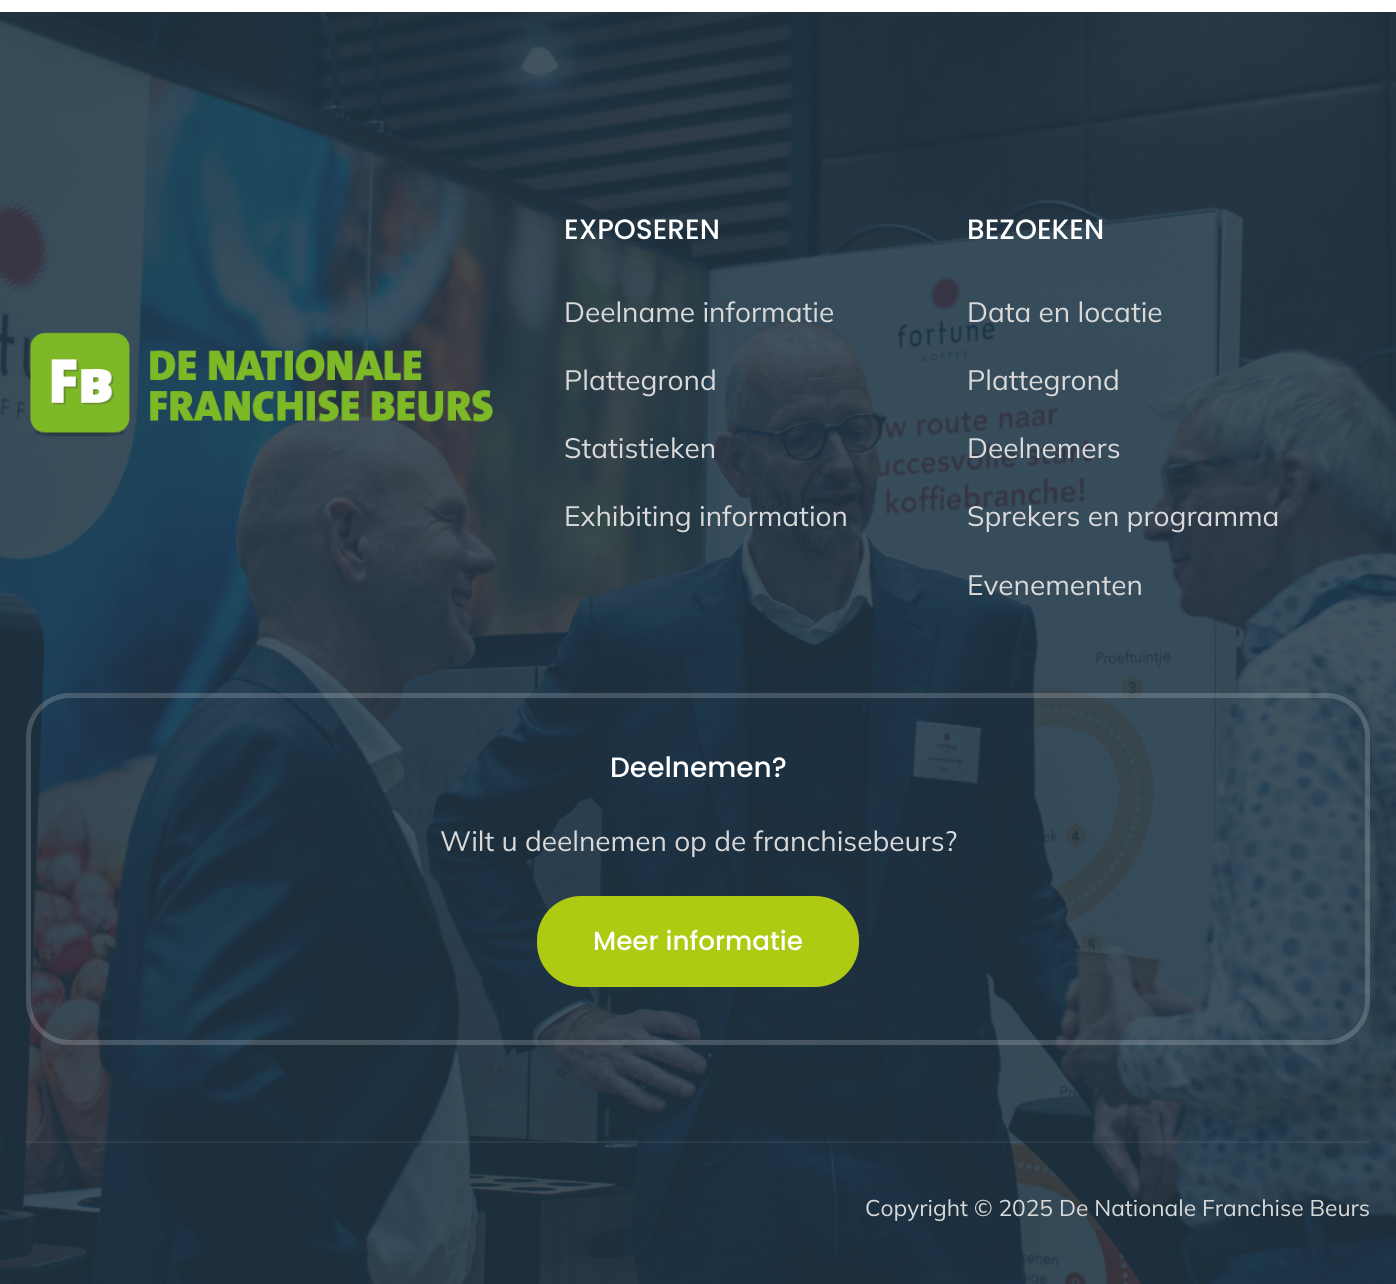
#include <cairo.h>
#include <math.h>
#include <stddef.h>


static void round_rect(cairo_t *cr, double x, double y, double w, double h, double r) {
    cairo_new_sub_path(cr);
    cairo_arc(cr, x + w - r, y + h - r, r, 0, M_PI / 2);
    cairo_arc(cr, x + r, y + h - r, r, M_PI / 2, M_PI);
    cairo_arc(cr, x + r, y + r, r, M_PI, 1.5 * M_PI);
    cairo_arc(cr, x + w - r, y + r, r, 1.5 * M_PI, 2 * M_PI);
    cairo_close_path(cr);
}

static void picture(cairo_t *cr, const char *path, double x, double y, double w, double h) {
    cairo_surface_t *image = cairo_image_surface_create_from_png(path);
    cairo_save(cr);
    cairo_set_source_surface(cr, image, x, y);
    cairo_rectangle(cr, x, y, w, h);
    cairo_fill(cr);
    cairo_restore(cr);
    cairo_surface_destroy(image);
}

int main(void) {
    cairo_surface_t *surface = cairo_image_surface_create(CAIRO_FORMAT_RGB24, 1396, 1284);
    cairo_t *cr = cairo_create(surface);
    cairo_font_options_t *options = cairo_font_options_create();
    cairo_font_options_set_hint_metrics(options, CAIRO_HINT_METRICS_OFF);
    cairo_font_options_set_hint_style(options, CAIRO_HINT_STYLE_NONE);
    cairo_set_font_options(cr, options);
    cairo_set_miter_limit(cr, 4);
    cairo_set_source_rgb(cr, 1, 1, 1);
    cairo_paint(cr);
    picture(cr, "img1.png", 0, 12, 1396, 1272);
    picture(cr, "img2.png", 30, 332, 463, 105);
    cairo_select_font_face(cr, "Poppins Medium", CAIRO_FONT_SLANT_NORMAL, CAIRO_FONT_WEIGHT_NORMAL);
    cairo_set_font_size(cr, 28);
    cairo_set_source_rgb(cr, 1, 1, 1);
    cairo_move_to(cr, 564, 239);
    cairo_show_text(cr, "EXPOSEREN");
    cairo_select_font_face(cr, "Mulish", CAIRO_FONT_SLANT_NORMAL, CAIRO_FONT_WEIGHT_NORMAL);
    cairo_set_source_rgb(cr, 0.851, 0.851, 0.851);
    cairo_move_to(cr, 564, 322);
    cairo_show_text(cr, "Deelname informatie");
    cairo_move_to(cr, 564, 390);
    cairo_show_text(cr, "Plattegrond");
    cairo_move_to(cr, 564, 458);
    cairo_show_text(cr, "Statistieken");
    cairo_move_to(cr, 564, 526);
    cairo_show_text(cr, "Exhibiting information");
    cairo_select_font_face(cr, "Poppins Medium", CAIRO_FONT_SLANT_NORMAL, CAIRO_FONT_WEIGHT_NORMAL);
    cairo_set_source_rgb(cr, 1, 1, 1);
    cairo_move_to(cr, 967, 239);
    cairo_show_text(cr, "BEZOEKEN");
    cairo_select_font_face(cr, "Mulish", CAIRO_FONT_SLANT_NORMAL, CAIRO_FONT_WEIGHT_NORMAL);
    cairo_set_source_rgb(cr, 0.851, 0.851, 0.851);
    cairo_move_to(cr, 967, 322);
    cairo_show_text(cr, "Data en locatie");
    cairo_move_to(cr, 967, 390);
    cairo_show_text(cr, "Plattegrond");
    cairo_move_to(cr, 967, 458);
    cairo_show_text(cr, "Deelnemers");
    cairo_move_to(cr, 967, 526);
    cairo_show_text(cr, "Sprekers en programma");
    cairo_move_to(cr, 967, 595);
    cairo_show_text(cr, "Evenementen");
    round_rect(cr, 28.5, 695.5, 1339, 347, 41.5);
    cairo_set_source_rgba(cr, 1, 1, 1, 0.18);
    cairo_set_line_width(cr, 5);
    cairo_stroke(cr);
    cairo_select_font_face(cr, "Poppins Medium", CAIRO_FONT_SLANT_NORMAL, CAIRO_FONT_WEIGHT_NORMAL);
    cairo_set_source_rgb(cr, 1, 1, 1);
    cairo_move_to(cr, 610, 777);
    cairo_show_text(cr, "Deelnemen?");
    cairo_select_font_face(cr, "Mulish", CAIRO_FONT_SLANT_NORMAL, CAIRO_FONT_WEIGHT_NORMAL);
    cairo_set_source_rgb(cr, 0.851, 0.851, 0.851);
    cairo_move_to(cr, 440, 851);
    cairo_show_text(cr, "Wilt u deelnemen op de franchisebeurs?");
    cairo_set_source_rgb(cr, 0.686, 0.792, 0.078);
    round_rect(cr, 538, 897, 320, 89, 43);
    cairo_fill_preserve(cr);
    cairo_set_line_width(cr, 2);
    cairo_stroke(cr);
    cairo_select_font_face(cr, "Poppins Medium", CAIRO_FONT_SLANT_NORMAL, CAIRO_FONT_WEIGHT_NORMAL);
    cairo_set_font_size(cr, 26.25);
    cairo_set_source_rgb(cr, 1, 1, 1);
    cairo_move_to(cr, 593, 950);
    cairo_show_text(cr, "Meer informatie");
    cairo_set_source_rgba(cr, 1, 1, 1, 0.06);
    cairo_rectangle(cr, 26, 1141, 1344, 2);
    cairo_fill(cr);
    cairo_select_font_face(cr, "Mulish", CAIRO_FONT_SLANT_NORMAL, CAIRO_FONT_WEIGHT_NORMAL);
    cairo_set_font_size(cr, 22.75);
    cairo_set_source_rgb(cr, 0.851, 0.851, 0.851);
    cairo_move_to(cr, 865, 1216);
    cairo_show_text(cr, "Copyright © 2025 De Nationale Franchise Beurs");
    cairo_surface_write_to_png(surface, "page.png");
    cairo_font_options_destroy(options);
    cairo_destroy(cr);
    cairo_surface_destroy(surface);
    return 0;
}
